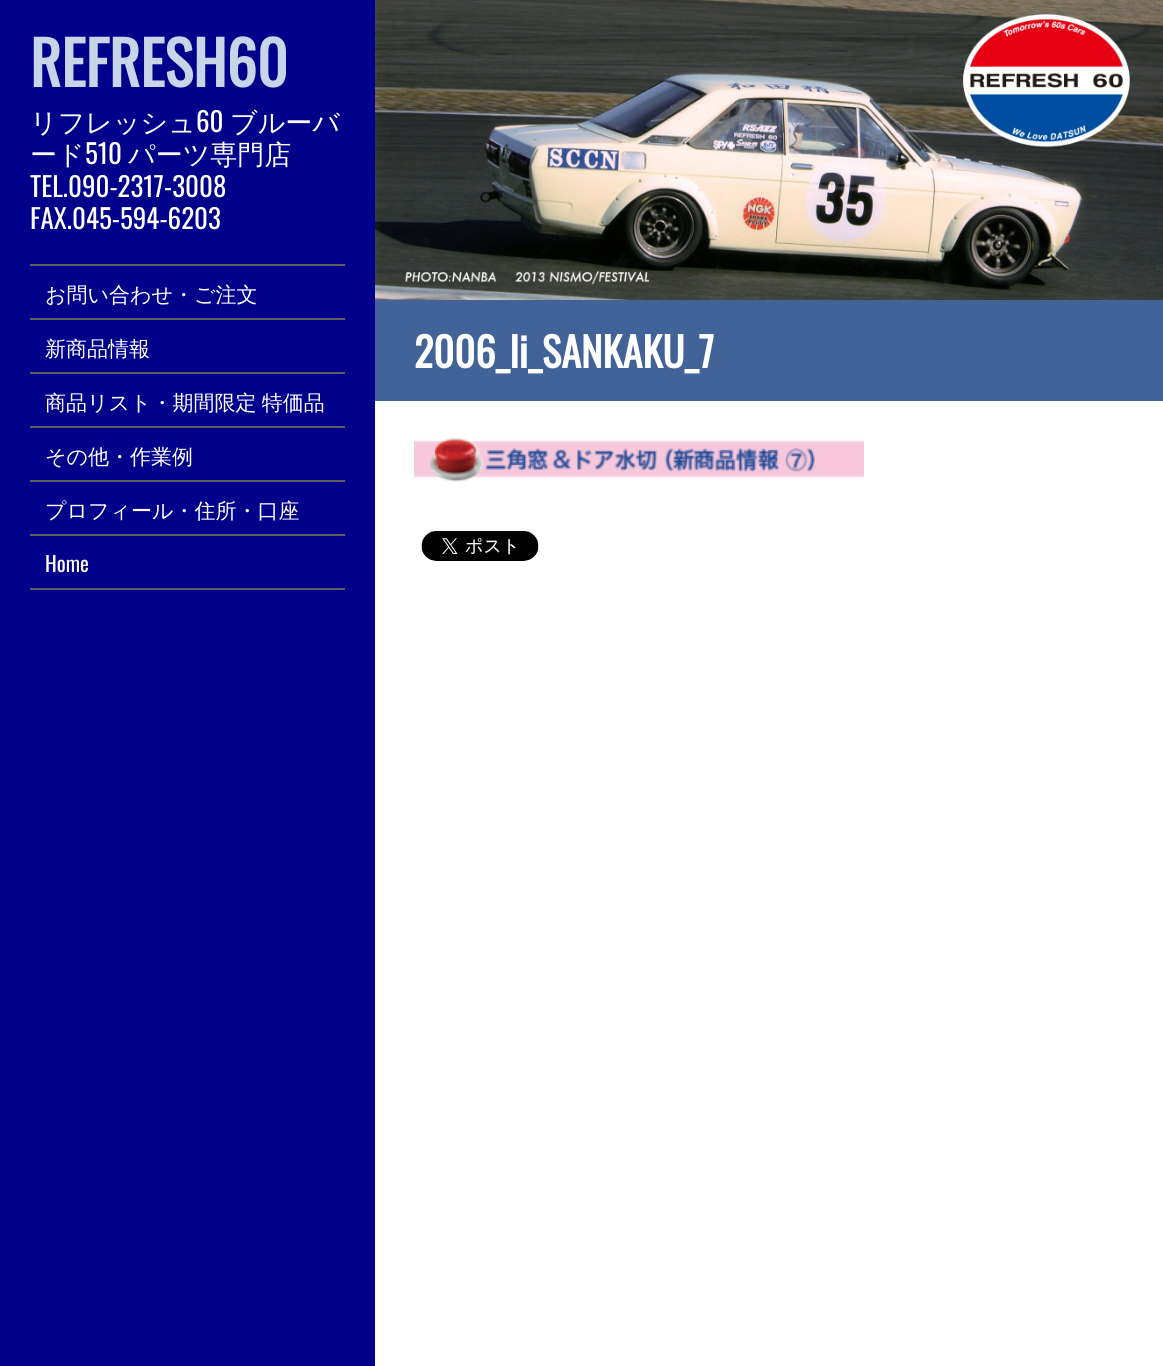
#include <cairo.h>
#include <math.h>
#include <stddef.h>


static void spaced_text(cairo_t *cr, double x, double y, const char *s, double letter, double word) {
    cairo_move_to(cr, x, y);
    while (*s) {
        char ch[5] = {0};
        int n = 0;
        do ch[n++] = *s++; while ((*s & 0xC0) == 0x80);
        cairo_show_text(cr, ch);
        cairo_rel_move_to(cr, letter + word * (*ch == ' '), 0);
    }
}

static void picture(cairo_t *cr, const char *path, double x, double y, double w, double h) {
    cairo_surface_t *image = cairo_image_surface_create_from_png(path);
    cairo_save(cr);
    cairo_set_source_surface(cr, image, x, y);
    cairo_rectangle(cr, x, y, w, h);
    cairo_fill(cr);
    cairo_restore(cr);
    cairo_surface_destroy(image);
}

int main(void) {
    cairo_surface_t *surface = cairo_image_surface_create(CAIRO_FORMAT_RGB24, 1163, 1366);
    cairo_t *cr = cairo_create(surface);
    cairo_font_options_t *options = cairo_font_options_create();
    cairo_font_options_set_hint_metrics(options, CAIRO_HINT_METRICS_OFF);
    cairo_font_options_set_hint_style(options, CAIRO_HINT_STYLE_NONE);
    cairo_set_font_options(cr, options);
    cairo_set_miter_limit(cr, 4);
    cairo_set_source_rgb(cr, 1, 1, 1);
    cairo_paint(cr);
    cairo_set_source_rgb(cr, 0, 0, 0.545);
    cairo_rectangle(cr, 0, 0, 375, 1366);
    cairo_fill(cr);
    cairo_select_font_face(cr, "Oswald", CAIRO_FONT_SLANT_NORMAL, CAIRO_FONT_WEIGHT_BOLD);
    cairo_set_font_size(cr, 60);
    cairo_set_source_rgb(cr, 0.784, 0.831, 0.91);
    cairo_move_to(cr, 30, 87);
    cairo_show_text(cr, "REFRESH60");
    cairo_select_font_face(cr, "WenQuanYi Zen Hei Medium", CAIRO_FONT_SLANT_NORMAL, CAIRO_FONT_WEIGHT_NORMAL);
    cairo_set_font_size(cr, 27);
    cairo_set_source_rgb(cr, 1, 1, 1);
    cairo_move_to(cr, 30, 132);
    cairo_show_text(cr, "リフレッシュ");
    cairo_select_font_face(cr, "Oswald", CAIRO_FONT_SLANT_NORMAL, CAIRO_FONT_WEIGHT_NORMAL);
    cairo_move_to(cr, 196, 132);
    cairo_show_text(cr, "60");
    cairo_select_font_face(cr, "WenQuanYi Zen Hei Medium", CAIRO_FONT_SLANT_NORMAL, CAIRO_FONT_WEIGHT_NORMAL);
    cairo_move_to(cr, 230, 132);
    cairo_show_text(cr, "ブルーバ");
    cairo_move_to(cr, 30, 164);
    cairo_show_text(cr, "ード");
    cairo_select_font_face(cr, "Oswald", CAIRO_FONT_SLANT_NORMAL, CAIRO_FONT_WEIGHT_NORMAL);
    cairo_move_to(cr, 85, 164);
    cairo_show_text(cr, "510");
    cairo_select_font_face(cr, "WenQuanYi Zen Hei Medium", CAIRO_FONT_SLANT_NORMAL, CAIRO_FONT_WEIGHT_NORMAL);
    cairo_move_to(cr, 128, 164);
    cairo_show_text(cr, "パーツ専門店");
    cairo_select_font_face(cr, "Oswald", CAIRO_FONT_SLANT_NORMAL, CAIRO_FONT_WEIGHT_NORMAL);
    cairo_move_to(cr, 30, 197);
    cairo_show_text(cr, "TEL.090-2317-3008");
    cairo_move_to(cr, 30, 229);
    cairo_show_text(cr, "FAX.045-594-6203");
    cairo_set_source_rgb(cr, 0.369, 0.369, 0.369);
    cairo_rectangle(cr, 30, 264, 315, 2);
    cairo_fill(cr);
    cairo_rectangle(cr, 30, 318, 315, 2);
    cairo_fill(cr);
    cairo_select_font_face(cr, "WenQuanYi Zen Hei Medium", CAIRO_FONT_SLANT_NORMAL, CAIRO_FONT_WEIGHT_NORMAL);
    cairo_set_font_size(cr, 21);
    cairo_set_source_rgb(cr, 1, 1, 1);
    cairo_move_to(cr, 45, 302);
    cairo_show_text(cr, "お問い合わせ・ご注文");
    cairo_set_source_rgb(cr, 0.369, 0.369, 0.369);
    cairo_rectangle(cr, 30, 372, 315, 2);
    cairo_fill(cr);
    cairo_set_source_rgb(cr, 1, 1, 1);
    cairo_move_to(cr, 45, 356);
    cairo_show_text(cr, "新商品情報");
    cairo_set_source_rgb(cr, 0.369, 0.369, 0.369);
    cairo_rectangle(cr, 30, 426, 315, 2);
    cairo_fill(cr);
    cairo_set_source_rgb(cr, 1, 1, 1);
    spaced_text(cr, 45, 410, "商品リスト・期間限定 特価品", 0, -1);
    cairo_set_source_rgb(cr, 0.369, 0.369, 0.369);
    cairo_rectangle(cr, 30, 480, 315, 2);
    cairo_fill(cr);
    cairo_set_source_rgb(cr, 1, 1, 1);
    cairo_move_to(cr, 45, 464);
    cairo_show_text(cr, "その他・作業例");
    cairo_set_source_rgb(cr, 0.369, 0.369, 0.369);
    cairo_rectangle(cr, 30, 534, 315, 2);
    cairo_fill(cr);
    cairo_set_source_rgb(cr, 1, 1, 1);
    cairo_move_to(cr, 45, 518);
    cairo_show_text(cr, "プロフィール・住所・口座");
    cairo_set_source_rgb(cr, 0.369, 0.369, 0.369);
    cairo_rectangle(cr, 30, 588, 315, 2);
    cairo_fill(cr);
    cairo_select_font_face(cr, "Oswald", CAIRO_FONT_SLANT_NORMAL, CAIRO_FONT_WEIGHT_NORMAL);
    cairo_set_source_rgb(cr, 1, 1, 1);
    cairo_move_to(cr, 45, 572);
    cairo_show_text(cr, "Home");
    picture(cr, "img1.png", 375, 0, 788, 300);
    cairo_set_source_rgb(cr, 0.259, 0.388, 0.596);
    cairo_rectangle(cr, 375, 300, 788, 101);
    cairo_fill(cr);
    cairo_select_font_face(cr, "Oswald", CAIRO_FONT_SLANT_NORMAL, CAIRO_FONT_WEIGHT_BOLD);
    cairo_set_font_size(cr, 40.5);
    cairo_set_source_rgb(cr, 1, 1, 1);
    cairo_move_to(cr, 414, 368);
    cairo_show_text(cr, "2006_li_SANKAKU_7");
    picture(cr, "img2.png", 414, 438, 450, 44);
    picture(cr, "img3.png", 421, 531, 118, 30);
    cairo_surface_write_to_png(surface, "page.png");
    cairo_font_options_destroy(options);
    cairo_destroy(cr);
    cairo_surface_destroy(surface);
    return 0;
}
